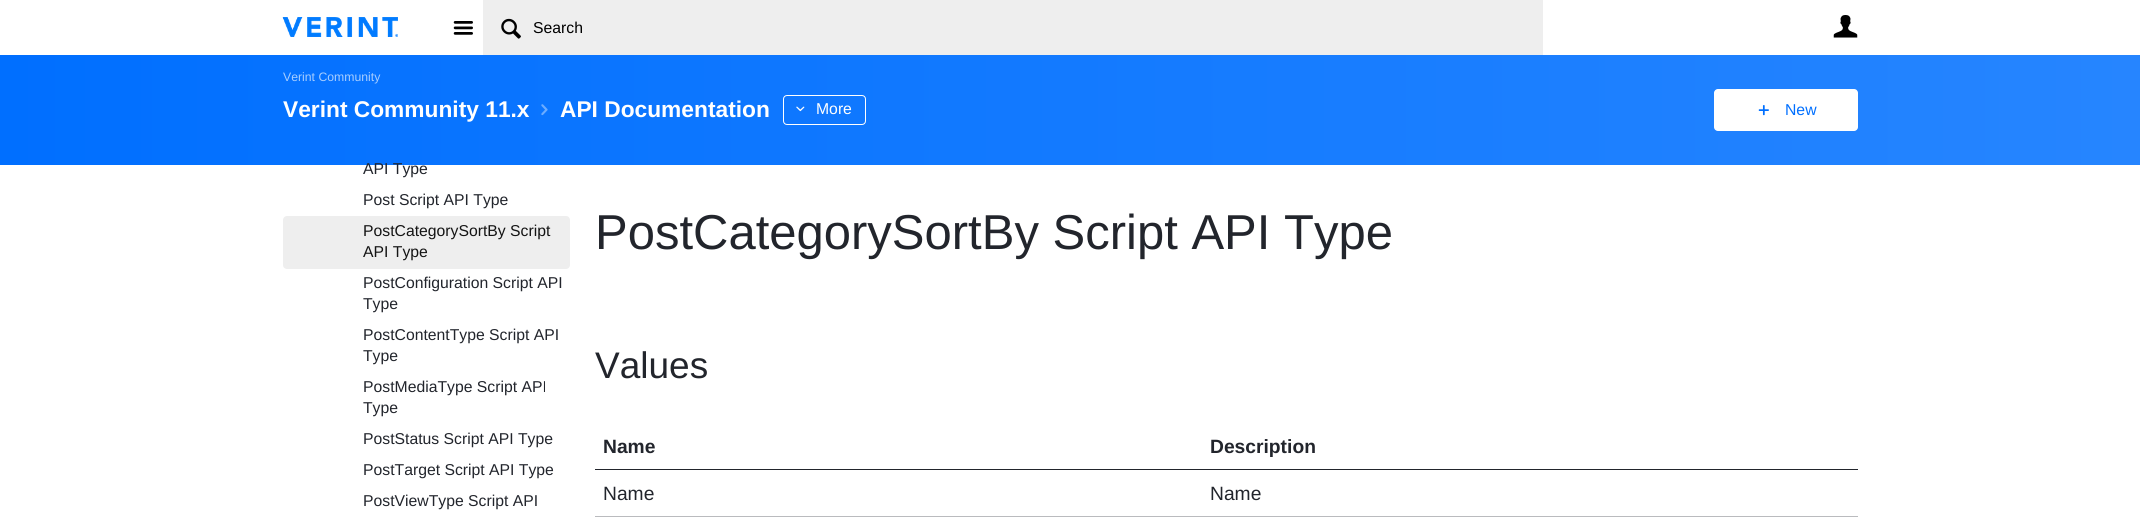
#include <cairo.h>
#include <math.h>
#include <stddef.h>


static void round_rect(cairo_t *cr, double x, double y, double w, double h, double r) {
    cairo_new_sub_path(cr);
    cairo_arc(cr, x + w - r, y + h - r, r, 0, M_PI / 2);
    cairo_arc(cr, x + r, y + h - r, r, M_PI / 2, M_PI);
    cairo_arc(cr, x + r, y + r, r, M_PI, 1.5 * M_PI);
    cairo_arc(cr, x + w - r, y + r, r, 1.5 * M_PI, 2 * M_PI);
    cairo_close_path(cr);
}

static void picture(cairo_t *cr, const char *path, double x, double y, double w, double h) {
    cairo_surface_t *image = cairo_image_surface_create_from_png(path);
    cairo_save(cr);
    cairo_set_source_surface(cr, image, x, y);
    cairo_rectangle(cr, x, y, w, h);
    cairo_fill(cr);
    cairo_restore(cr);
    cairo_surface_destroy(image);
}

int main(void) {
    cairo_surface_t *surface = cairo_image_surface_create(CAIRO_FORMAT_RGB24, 2140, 524);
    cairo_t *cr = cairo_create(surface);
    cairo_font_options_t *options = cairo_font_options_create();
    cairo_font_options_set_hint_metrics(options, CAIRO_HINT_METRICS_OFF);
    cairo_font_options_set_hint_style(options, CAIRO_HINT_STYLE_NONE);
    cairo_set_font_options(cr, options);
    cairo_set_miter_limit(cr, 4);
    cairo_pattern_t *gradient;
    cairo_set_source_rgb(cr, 1, 1, 1);
    cairo_paint(cr);
    picture(cr, "img1.png", 282, 17, 116, 20);
    picture(cr, "img2.png", 453, 21, 20, 14);
    cairo_set_source_rgb(cr, 0.933, 0.933, 0.933);
    cairo_rectangle(cr, 483, 0, 1060, 55);
    cairo_fill(cr);
    picture(cr, "img3.png", 501, 18, 20, 21);
    cairo_select_font_face(cr, "Liberation Sans", CAIRO_FONT_SLANT_NORMAL, CAIRO_FONT_WEIGHT_NORMAL);
    cairo_set_font_size(cr, 15.75);
    cairo_set_source_rgb(cr, 0, 0, 0);
    cairo_move_to(cr, 533, 33);
    cairo_show_text(cr, "Search");
    picture(cr, "img4.png", 1833, 15, 25, 23);
    gradient = cairo_pattern_create_linear(0, 110, 2140, 110);
    cairo_pattern_add_color_stop_rgba(gradient, 0, 0, 0.435, 1, 1);
    cairo_pattern_add_color_stop_rgba(gradient, 1, 0.149, 0.522, 1, 1);
    cairo_set_source(cr, gradient);
    cairo_pattern_destroy(gradient);
    cairo_rectangle(cr, 0, 55, 2140, 110);
    cairo_fill(cr);
    cairo_set_font_size(cr, 12.25);
    cairo_set_source_rgb(cr, 0.659, 0.808, 1);
    cairo_move_to(cr, 283, 81);
    cairo_show_text(cr, "Verint Community");
    cairo_select_font_face(cr, "Liberation Sans", CAIRO_FONT_SLANT_NORMAL, CAIRO_FONT_WEIGHT_BOLD);
    cairo_set_font_size(cr, 22.75);
    cairo_set_source_rgb(cr, 1, 1, 1);
    cairo_move_to(cr, 283, 117);
    cairo_show_text(cr, "Verint Community 11.x");
    picture(cr, "img5.png", 541, 104, 7, 12);
    cairo_move_to(cr, 560, 117);
    cairo_show_text(cr, "API Documentation");
    round_rect(cr, 783.5, 95.5, 82, 29, 3.5);
    cairo_set_line_width(cr, 1);
    cairo_stroke(cr);
    picture(cr, "img6.png", 796, 106, 9, 6);
    cairo_select_font_face(cr, "Liberation Sans", CAIRO_FONT_SLANT_NORMAL, CAIRO_FONT_WEIGHT_NORMAL);
    cairo_set_font_size(cr, 15.75);
    cairo_move_to(cr, 816, 114);
    cairo_show_text(cr, "More");
    round_rect(cr, 1714, 89, 144, 42, 4);
    cairo_fill(cr);
    picture(cr, "img7.png", 1758, 105, 11, 11);
    cairo_set_source_rgb(cr, 0, 0.435, 1);
    cairo_move_to(cr, 1785, 115);
    cairo_show_text(cr, "New");
    cairo_set_source_rgb(cr, 0.133, 0.145, 0.173);
    cairo_move_to(cr, 363, 174);
    cairo_show_text(cr, "API Type");
    cairo_move_to(cr, 363, 205);
    cairo_show_text(cr, "Post Script API Type");
    cairo_set_source_rgb(cr, 0.933, 0.933, 0.933);
    round_rect(cr, 283, 216, 287, 53, 4);
    cairo_fill(cr);
    cairo_set_source_rgb(cr, 0.082, 0.082, 0.082);
    cairo_move_to(cr, 363, 236);
    cairo_show_text(cr, "PostCategorySortBy Script");
    cairo_move_to(cr, 363, 257);
    cairo_show_text(cr, "API Type");
    cairo_set_source_rgb(cr, 0.133, 0.145, 0.173);
    cairo_move_to(cr, 363, 288);
    cairo_show_text(cr, "PostConfiguration Script API");
    cairo_move_to(cr, 363, 309);
    cairo_show_text(cr, "Type");
    cairo_move_to(cr, 363, 340);
    cairo_show_text(cr, "PostContentType Script API");
    cairo_move_to(cr, 363, 361);
    cairo_show_text(cr, "Type");
    cairo_move_to(cr, 363, 392);
    cairo_show_text(cr, "PostMediaType Script API");
    cairo_move_to(cr, 363, 413);
    cairo_show_text(cr, "Type");
    cairo_move_to(cr, 363, 444);
    cairo_show_text(cr, "PostStatus Script API Type");
    cairo_move_to(cr, 363, 475);
    cairo_show_text(cr, "PostTarget Script API Type");
    cairo_move_to(cr, 363, 506);
    cairo_show_text(cr, "PostViewType Script API");
    cairo_set_font_size(cr, 49);
    cairo_move_to(cr, 595, 249);
    cairo_show_text(cr, "PostCategorySortBy Script API Type");
    cairo_set_font_size(cr, 37);
    cairo_move_to(cr, 595, 378);
    cairo_show_text(cr, "Values");
    cairo_select_font_face(cr, "Liberation Sans", CAIRO_FONT_SLANT_NORMAL, CAIRO_FONT_WEIGHT_BOLD);
    cairo_set_font_size(cr, 19.25);
    cairo_move_to(cr, 603, 453);
    cairo_show_text(cr, "Name");
    cairo_rectangle(cr, 595, 469, 1263, 1);
    cairo_fill(cr);
    cairo_move_to(cr, 1210, 453);
    cairo_show_text(cr, "Description");
    cairo_select_font_face(cr, "Liberation Sans", CAIRO_FONT_SLANT_NORMAL, CAIRO_FONT_WEIGHT_NORMAL);
    cairo_move_to(cr, 603, 500);
    cairo_show_text(cr, "Name");
    cairo_set_source_rgb(cr, 0.729, 0.733, 0.745);
    cairo_rectangle(cr, 595, 516, 1263, 1);
    cairo_fill(cr);
    cairo_set_source_rgb(cr, 0.133, 0.145, 0.173);
    cairo_move_to(cr, 1210, 500);
    cairo_show_text(cr, "Name");
    cairo_surface_write_to_png(surface, "page.png");
    cairo_font_options_destroy(options);
    cairo_destroy(cr);
    cairo_surface_destroy(surface);
    return 0;
}
